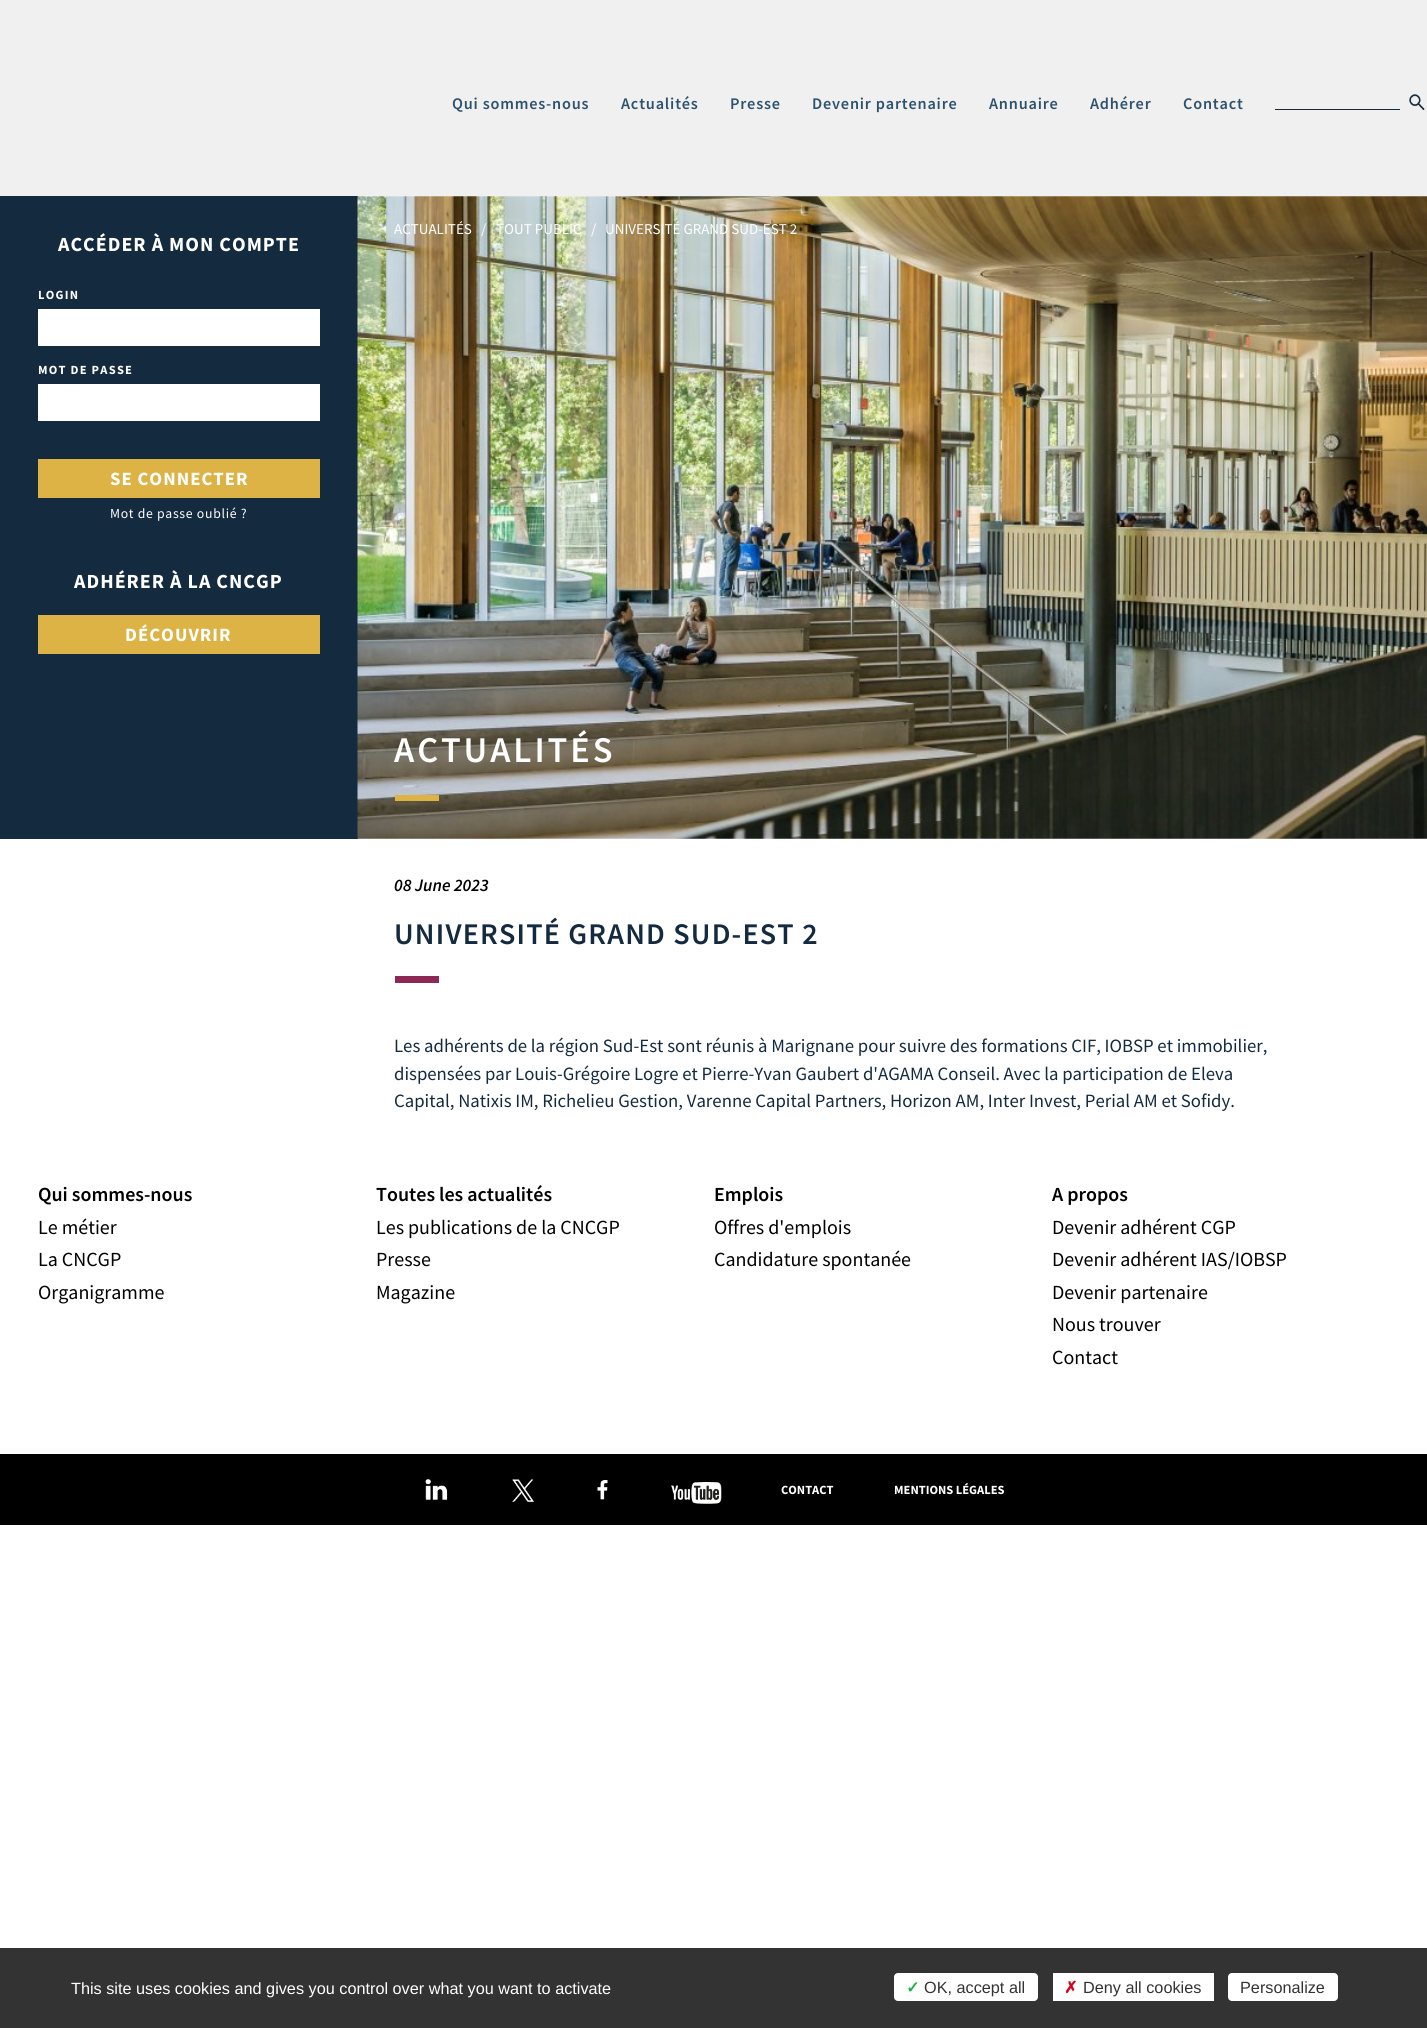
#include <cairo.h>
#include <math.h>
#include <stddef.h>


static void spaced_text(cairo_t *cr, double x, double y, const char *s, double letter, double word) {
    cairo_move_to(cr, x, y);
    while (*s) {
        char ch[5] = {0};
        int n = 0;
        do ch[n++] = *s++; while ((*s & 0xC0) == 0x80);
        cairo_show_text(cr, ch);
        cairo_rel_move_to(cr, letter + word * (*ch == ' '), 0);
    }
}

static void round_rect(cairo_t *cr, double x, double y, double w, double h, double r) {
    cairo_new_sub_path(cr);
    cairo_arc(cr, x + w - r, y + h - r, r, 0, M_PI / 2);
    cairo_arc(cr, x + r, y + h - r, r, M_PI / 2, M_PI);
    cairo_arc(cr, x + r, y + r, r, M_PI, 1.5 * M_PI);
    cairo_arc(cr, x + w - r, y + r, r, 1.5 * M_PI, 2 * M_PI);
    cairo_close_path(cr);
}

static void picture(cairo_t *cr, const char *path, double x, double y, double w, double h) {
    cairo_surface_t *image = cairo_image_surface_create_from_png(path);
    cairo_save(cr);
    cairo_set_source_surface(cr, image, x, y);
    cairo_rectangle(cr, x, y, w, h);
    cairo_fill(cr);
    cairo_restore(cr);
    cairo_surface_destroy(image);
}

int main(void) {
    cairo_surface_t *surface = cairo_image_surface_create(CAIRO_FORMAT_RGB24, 1427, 2028);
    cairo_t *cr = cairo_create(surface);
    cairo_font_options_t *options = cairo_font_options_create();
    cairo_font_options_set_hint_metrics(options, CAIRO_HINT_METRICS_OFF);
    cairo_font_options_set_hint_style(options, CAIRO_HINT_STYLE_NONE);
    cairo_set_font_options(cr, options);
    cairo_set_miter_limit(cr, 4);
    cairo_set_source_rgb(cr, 1, 1, 1);
    cairo_paint(cr);
    cairo_set_source_rgb(cr, 0.941, 0.941, 0.941);
    cairo_rectangle(cr, 0, 0, 1427, 196);
    cairo_fill(cr);
    cairo_select_font_face(cr, "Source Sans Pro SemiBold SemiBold", CAIRO_FONT_SLANT_NORMAL, CAIRO_FONT_WEIGHT_NORMAL);
    cairo_set_font_size(cr, 16.25);
    cairo_set_source_rgb(cr, 0.18, 0.322, 0.424);
    spaced_text(cr, 452, 109, "Qui sommes-nous", 0.8, 0);
    spaced_text(cr, 621, 109, "Actualités", 0.8, 0);
    spaced_text(cr, 730, 109, "Presse", 0.8, 0);
    spaced_text(cr, 812, 109, "Devenir partenaire", 0.8, 0);
    spaced_text(cr, 989, 109, "Annuaire", 0.8, 0);
    spaced_text(cr, 1090, 109, "Adhérer", 0.8, 0);
    spaced_text(cr, 1183, 109, "Contact", 0.8, 0);
    cairo_set_source_rgb(cr, 0.078, 0.165, 0.247);
    cairo_rectangle(cr, 1275, 109, 125, 1);
    cairo_fill(cr);
    cairo_rectangle(cr, 1409, 94, 16, 16);
    cairo_fill(cr);
    picture(cr, "img1.png", 1409, 94, 16, 16);
    cairo_rectangle(cr, 0, 196, 358, 643);
    cairo_fill(cr);
    cairo_select_font_face(cr, "Source Sans Pro", CAIRO_FONT_SLANT_NORMAL, CAIRO_FONT_WEIGHT_BOLD);
    cairo_set_font_size(cr, 20);
    cairo_set_source_rgb(cr, 1, 1, 1);
    spaced_text(cr, 58, 251, "ACCÉDER À MON COMPTE", 1, 0);
    cairo_set_font_size(cr, 12.5);
    spaced_text(cr, 38, 299, "LOGIN", 1.25, 0);
    cairo_rectangle(cr, 38, 309, 282, 37);
    cairo_fill(cr);
    spaced_text(cr, 38, 374, "MOT DE PASSE", 1.25, 0);
    cairo_rectangle(cr, 38, 384, 282, 37);
    cairo_fill(cr);
    cairo_set_source_rgb(cr, 0.867, 0.702, 0.275);
    cairo_rectangle(cr, 38, 459, 282, 39);
    cairo_fill(cr);
    cairo_set_font_size(cr, 18.75);
    cairo_set_source_rgb(cr, 1, 1, 1);
    spaced_text(cr, 110, 485, "SE CONNECTER", 1, 0);
    cairo_select_font_face(cr, "Source Sans Pro", CAIRO_FONT_SLANT_NORMAL, CAIRO_FONT_WEIGHT_NORMAL);
    cairo_set_font_size(cr, 13.75);
    spaced_text(cr, 110, 518, "Mot de passe oublié ?", 0.7, 0);
    cairo_select_font_face(cr, "Source Sans Pro", CAIRO_FONT_SLANT_NORMAL, CAIRO_FONT_WEIGHT_BOLD);
    cairo_set_font_size(cr, 20);
    spaced_text(cr, 74, 588, "ADHÉRER À LA CNCGP", 1, 0);
    cairo_set_source_rgb(cr, 0.867, 0.702, 0.275);
    cairo_rectangle(cr, 38, 615, 282, 39);
    cairo_fill(cr);
    cairo_set_font_size(cr, 18.75);
    cairo_set_source_rgb(cr, 1, 1, 1);
    spaced_text(cr, 125, 641, "DÉCOUVRIR", 1, 0);
    picture(cr, "img2.png", 357, 196, 1070, 643);
    cairo_select_font_face(cr, "Source Sans Pro", CAIRO_FONT_SLANT_NORMAL, CAIRO_FONT_WEIGHT_NORMAL);
    cairo_set_font_size(cr, 15);
    cairo_move_to(cr, 394, 234);
    cairo_show_text(cr, "ACTUALITÉS");
    cairo_move_to(cr, 481, 234);
    cairo_show_text(cr, "/");
    cairo_move_to(cr, 496, 234);
    cairo_show_text(cr, "TOUT PUBLIC");
    cairo_move_to(cr, 591, 234);
    cairo_show_text(cr, "/");
    cairo_move_to(cr, 605, 234);
    cairo_show_text(cr, "UNIVERSITÉ GRAND SUD-EST 2");
    cairo_select_font_face(cr, "Source Sans Pro SemiBold SemiBold", CAIRO_FONT_SLANT_NORMAL, CAIRO_FONT_WEIGHT_NORMAL);
    cairo_set_font_size(cr, 36.25);
    spaced_text(cr, 394, 762, "ACTUALITÉS", 2.9, 0);
    cairo_set_source_rgb(cr, 0.867, 0.702, 0.275);
    cairo_rectangle(cr, 395, 795, 44, 6);
    cairo_fill(cr);
    cairo_select_font_face(cr, "Source Sans Pro SemiBold SemiBold", CAIRO_FONT_SLANT_ITALIC, CAIRO_FONT_WEIGHT_NORMAL);
    cairo_set_font_size(cr, 17.5);
    cairo_set_source_rgb(cr, 0, 0, 0);
    cairo_move_to(cr, 394, 891);
    cairo_show_text(cr, "08 June 2023");
    cairo_select_font_face(cr, "Source Sans Pro SemiBold SemiBold", CAIRO_FONT_SLANT_NORMAL, CAIRO_FONT_WEIGHT_NORMAL);
    cairo_set_font_size(cr, 30);
    cairo_set_source_rgb(cr, 0.078, 0.165, 0.247);
    spaced_text(cr, 394, 944, "UNIVERSITÉ GRAND SUD-EST 2", 1.2, 0);
    cairo_set_source_rgb(cr, 0.553, 0.153, 0.337);
    cairo_rectangle(cr, 395, 976, 44, 7);
    cairo_fill(cr);
    cairo_select_font_face(cr, "Source Sans Pro", CAIRO_FONT_SLANT_NORMAL, CAIRO_FONT_WEIGHT_NORMAL);
    cairo_set_font_size(cr, 18.75);
    cairo_set_source_rgb(cr, 0.078, 0.165, 0.247);
    cairo_move_to(cr, 394, 1052);
    cairo_show_text(cr, "Les adhérents de la région Sud-Est sont réunis à Marignane pour suivre des formations CIF, IOBSP et immobilier,");
    cairo_move_to(cr, 394, 1080);
    cairo_show_text(cr, "dispensées par Louis-Grégoire Logre et Pierre-Yvan Gaubert d'AGAMA Conseil. Avec la participation de Eleva");
    cairo_move_to(cr, 394, 1107);
    cairo_show_text(cr, "Capital, Natixis IM, Richelieu Gestion, Varenne Capital Partners, Horizon AM, Inter Invest, Perial AM et Sofidy.");
    cairo_select_font_face(cr, "Source Sans Pro SemiBold SemiBold", CAIRO_FONT_SLANT_NORMAL, CAIRO_FONT_WEIGHT_NORMAL);
    cairo_set_font_size(cr, 20);
    cairo_set_source_rgb(cr, 0, 0, 0);
    cairo_move_to(cr, 38, 1201);
    cairo_show_text(cr, "Qui sommes-nous");
    cairo_select_font_face(cr, "Source Sans Pro", CAIRO_FONT_SLANT_NORMAL, CAIRO_FONT_WEIGHT_NORMAL);
    cairo_move_to(cr, 38, 1234);
    cairo_show_text(cr, "Le métier");
    cairo_move_to(cr, 38, 1266);
    cairo_show_text(cr, "La CNCGP");
    cairo_move_to(cr, 38, 1299);
    cairo_show_text(cr, "Organigramme");
    cairo_select_font_face(cr, "Source Sans Pro SemiBold SemiBold", CAIRO_FONT_SLANT_NORMAL, CAIRO_FONT_WEIGHT_NORMAL);
    cairo_move_to(cr, 376, 1201);
    cairo_show_text(cr, "Toutes les actualités");
    cairo_select_font_face(cr, "Source Sans Pro", CAIRO_FONT_SLANT_NORMAL, CAIRO_FONT_WEIGHT_NORMAL);
    cairo_move_to(cr, 376, 1234);
    cairo_show_text(cr, "Les publications de la CNCGP");
    cairo_move_to(cr, 376, 1266);
    cairo_show_text(cr, "Presse");
    cairo_move_to(cr, 376, 1299);
    cairo_show_text(cr, "Magazine");
    cairo_select_font_face(cr, "Source Sans Pro SemiBold SemiBold", CAIRO_FONT_SLANT_NORMAL, CAIRO_FONT_WEIGHT_NORMAL);
    cairo_move_to(cr, 714, 1201);
    cairo_show_text(cr, "Emplois");
    cairo_select_font_face(cr, "Source Sans Pro", CAIRO_FONT_SLANT_NORMAL, CAIRO_FONT_WEIGHT_NORMAL);
    cairo_move_to(cr, 714, 1234);
    cairo_show_text(cr, "Offres d'emplois");
    cairo_move_to(cr, 714, 1266);
    cairo_show_text(cr, "Candidature spontanée");
    cairo_select_font_face(cr, "Source Sans Pro SemiBold SemiBold", CAIRO_FONT_SLANT_NORMAL, CAIRO_FONT_WEIGHT_NORMAL);
    cairo_move_to(cr, 1052, 1201);
    cairo_show_text(cr, "A propos");
    cairo_select_font_face(cr, "Source Sans Pro", CAIRO_FONT_SLANT_NORMAL, CAIRO_FONT_WEIGHT_NORMAL);
    cairo_move_to(cr, 1052, 1234);
    cairo_show_text(cr, "Devenir adhérent CGP");
    cairo_move_to(cr, 1052, 1266);
    cairo_show_text(cr, "Devenir adhérent IAS/IOBSP");
    cairo_move_to(cr, 1052, 1299);
    cairo_show_text(cr, "Devenir partenaire");
    cairo_move_to(cr, 1052, 1331);
    cairo_show_text(cr, "Nous trouver");
    cairo_move_to(cr, 1052, 1364);
    cairo_show_text(cr, "Contact");
    cairo_rectangle(cr, 0, 1454, 1427, 71);
    cairo_fill(cr);
    picture(cr, "img3.png", 425, 1479, 23, 21);
    picture(cr, "img4.png", 512, 1479, 22, 23);
    picture(cr, "img5.png", 597, 1480, 11, 20);
    picture(cr, "img6.png", 671, 1482, 51, 22);
    cairo_select_font_face(cr, "Source Sans Pro", CAIRO_FONT_SLANT_NORMAL, CAIRO_FONT_WEIGHT_BOLD);
    cairo_set_font_size(cr, 12.5);
    cairo_set_source_rgb(cr, 1, 1, 1);
    cairo_move_to(cr, 781, 1494);
    cairo_show_text(cr, "CONTACT");
    cairo_move_to(cr, 894, 1494);
    cairo_show_text(cr, "MENTIONS LÉGALES");
    cairo_set_source_rgb(cr, 0.2, 0.2, 0.2);
    cairo_rectangle(cr, 0, 1948, 1427, 80);
    cairo_fill(cr);
    cairo_select_font_face(cr, "Liberation Sans", CAIRO_FONT_SLANT_NORMAL, CAIRO_FONT_WEIGHT_NORMAL);
    cairo_set_font_size(cr, 16.25);
    cairo_set_source_rgb(cr, 1, 1, 1);
    cairo_move_to(cr, 71, 1994);
    cairo_show_text(cr, "This site uses cookies and gives you control over what you want to activate");
    round_rect(cr, 894, 1973, 144, 28, 4);
    cairo_fill(cr);
    cairo_select_font_face(cr, "DejaVu Sans", CAIRO_FONT_SLANT_NORMAL, CAIRO_FONT_WEIGHT_BOLD);
    cairo_set_source_rgb(cr, 0.098, 0.694, 0.235);
    cairo_move_to(cr, 906, 1993);
    cairo_show_text(cr, "✓");
    cairo_select_font_face(cr, "Liberation Sans", CAIRO_FONT_SLANT_NORMAL, CAIRO_FONT_WEIGHT_NORMAL);
    cairo_set_source_rgb(cr, 0.2, 0.2, 0.2);
    cairo_move_to(cr, 924, 1993);
    cairo_show_text(cr, "OK, accept all");
    cairo_set_source_rgb(cr, 1, 1, 1);
    cairo_rectangle(cr, 1053, 1973, 161, 28);
    cairo_fill(cr);
    cairo_select_font_face(cr, "DejaVu Sans", CAIRO_FONT_SLANT_NORMAL, CAIRO_FONT_WEIGHT_BOLD);
    cairo_set_source_rgb(cr, 0.855, 0, 0.106);
    cairo_move_to(cr, 1064, 1993);
    cairo_show_text(cr, "✗");
    cairo_select_font_face(cr, "Liberation Sans", CAIRO_FONT_SLANT_NORMAL, CAIRO_FONT_WEIGHT_NORMAL);
    cairo_set_source_rgb(cr, 0.2, 0.2, 0.2);
    cairo_move_to(cr, 1083, 1993);
    cairo_show_text(cr, "Deny all cookies");
    cairo_set_source_rgb(cr, 1, 1, 1);
    round_rect(cr, 1228, 1973, 110, 28, 4);
    cairo_fill(cr);
    cairo_set_source_rgb(cr, 0.2, 0.2, 0.2);
    cairo_move_to(cr, 1240, 1993);
    cairo_show_text(cr, "Personalize");
    cairo_surface_write_to_png(surface, "page.png");
    cairo_font_options_destroy(options);
    cairo_destroy(cr);
    cairo_surface_destroy(surface);
    return 0;
}
